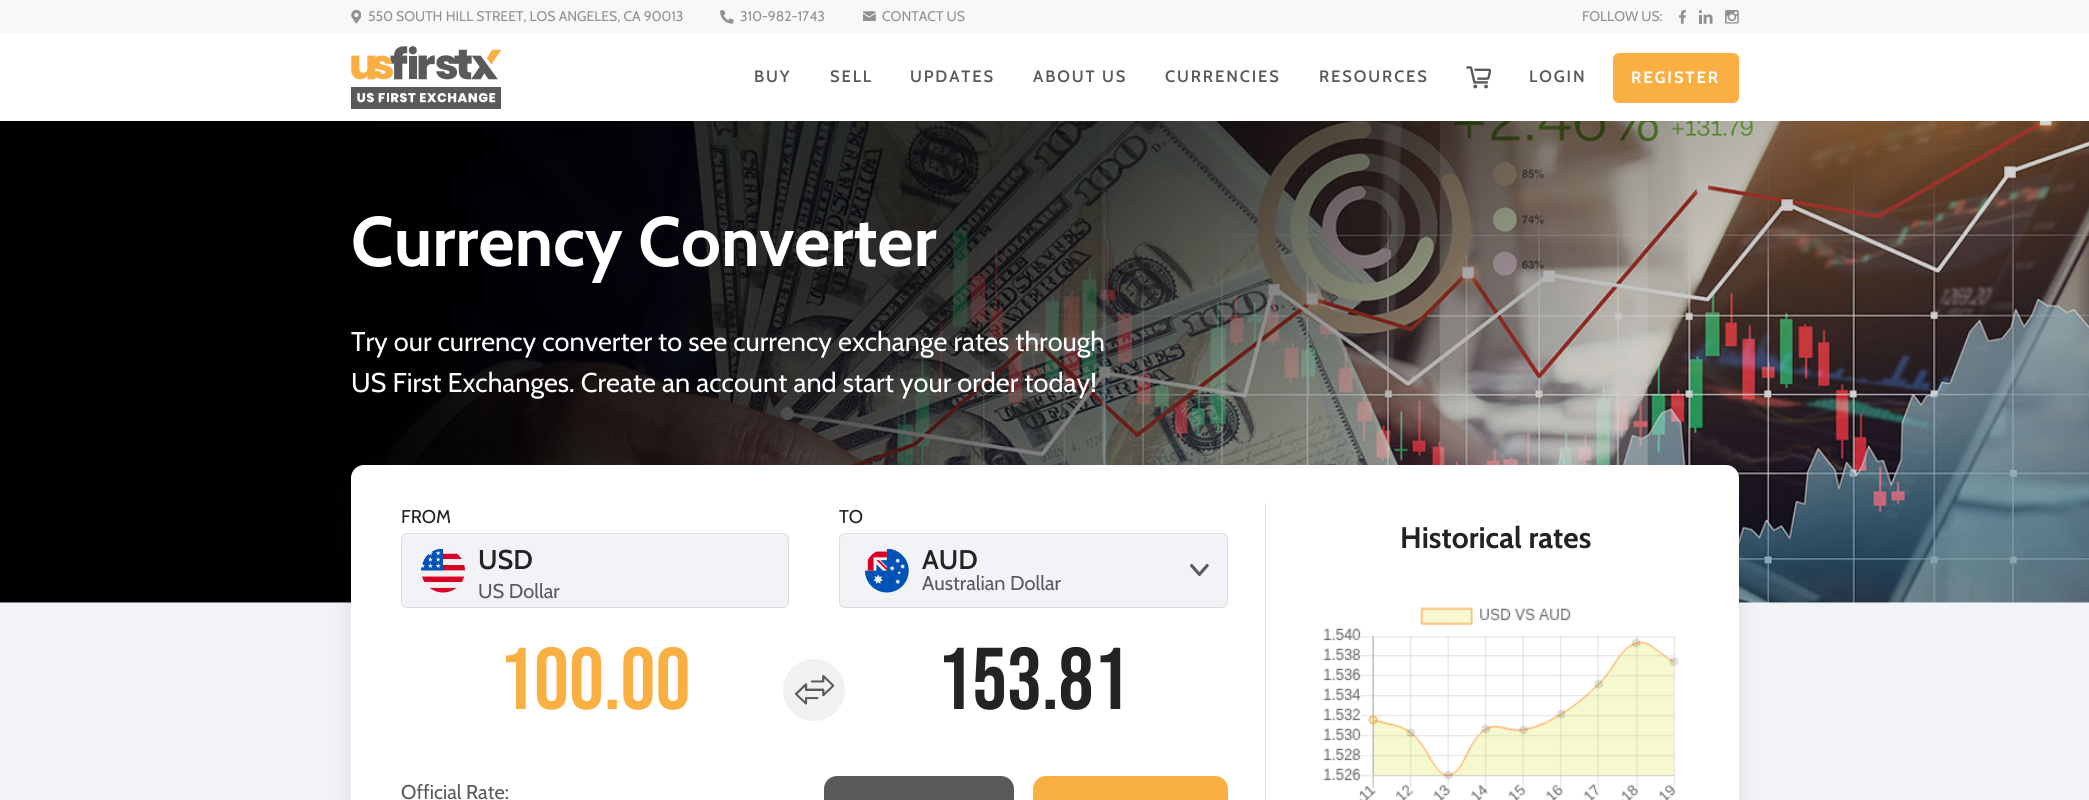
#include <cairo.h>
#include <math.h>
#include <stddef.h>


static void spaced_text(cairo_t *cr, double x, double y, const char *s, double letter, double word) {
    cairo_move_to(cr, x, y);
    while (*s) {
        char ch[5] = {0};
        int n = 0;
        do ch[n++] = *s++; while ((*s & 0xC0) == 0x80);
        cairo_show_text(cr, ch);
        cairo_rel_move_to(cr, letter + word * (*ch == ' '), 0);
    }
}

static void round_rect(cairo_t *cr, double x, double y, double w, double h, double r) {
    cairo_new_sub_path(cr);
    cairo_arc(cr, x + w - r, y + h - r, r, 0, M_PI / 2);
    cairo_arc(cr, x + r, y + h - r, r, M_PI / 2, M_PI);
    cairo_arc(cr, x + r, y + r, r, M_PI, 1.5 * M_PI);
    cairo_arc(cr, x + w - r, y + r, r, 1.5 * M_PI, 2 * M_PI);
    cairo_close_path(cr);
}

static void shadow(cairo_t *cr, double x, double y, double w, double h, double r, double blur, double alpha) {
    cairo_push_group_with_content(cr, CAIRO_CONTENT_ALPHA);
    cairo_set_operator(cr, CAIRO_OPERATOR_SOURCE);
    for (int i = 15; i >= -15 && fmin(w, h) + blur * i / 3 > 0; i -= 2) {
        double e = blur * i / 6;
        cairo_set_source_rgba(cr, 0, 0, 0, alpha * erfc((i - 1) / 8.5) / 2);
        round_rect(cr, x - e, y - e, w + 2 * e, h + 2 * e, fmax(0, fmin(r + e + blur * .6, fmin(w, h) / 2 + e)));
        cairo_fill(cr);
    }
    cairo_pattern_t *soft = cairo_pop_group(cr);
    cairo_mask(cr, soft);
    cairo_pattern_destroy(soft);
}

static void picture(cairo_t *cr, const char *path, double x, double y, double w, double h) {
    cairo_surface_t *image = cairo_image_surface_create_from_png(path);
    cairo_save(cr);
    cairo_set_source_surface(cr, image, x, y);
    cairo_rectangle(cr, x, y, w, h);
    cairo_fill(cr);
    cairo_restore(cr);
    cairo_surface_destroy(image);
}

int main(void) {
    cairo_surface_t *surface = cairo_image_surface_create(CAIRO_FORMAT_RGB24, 2089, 800);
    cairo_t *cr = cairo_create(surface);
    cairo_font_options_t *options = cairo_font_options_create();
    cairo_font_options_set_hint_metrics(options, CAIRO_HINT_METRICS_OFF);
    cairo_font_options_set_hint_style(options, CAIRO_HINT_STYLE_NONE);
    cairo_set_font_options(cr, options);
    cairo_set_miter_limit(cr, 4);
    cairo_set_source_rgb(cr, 1, 1, 1);
    cairo_paint(cr);
    cairo_set_source_rgb(cr, 0.969, 0.969, 0.969);
    cairo_rectangle(cr, 0, 0, 2089, 34);
    cairo_fill(cr);
    picture(cr, "img1.png", 351, 9, 10, 15);
    cairo_select_font_face(cr, "Cabin", CAIRO_FONT_SLANT_NORMAL, CAIRO_FONT_WEIGHT_NORMAL);
    cairo_set_font_size(cr, 14);
    cairo_set_source_rgb(cr, 0.569, 0.569, 0.569);
    cairo_move_to(cr, 368, 21);
    cairo_show_text(cr, "550 SOUTH HILL STREET, LOS ANGELES, CA 90013");
    picture(cr, "img2.png", 720, 10, 14, 14);
    cairo_move_to(cr, 740, 21);
    cairo_show_text(cr, "310-982-1743");
    picture(cr, "img3.png", 863, 11, 13, 10);
    cairo_move_to(cr, 882, 21);
    cairo_show_text(cr, "CONTACT US");
    cairo_move_to(cr, 1582, 21);
    cairo_show_text(cr, "FOLLOW US:");
    picture(cr, "img4.png", 1679, 10, 7, 14);
    picture(cr, "img5.png", 1699, 10, 14, 14);
    picture(cr, "img6.png", 1725, 10, 14, 14);
    picture(cr, "img7.png", 351, 46, 150, 63);
    cairo_select_font_face(cr, "Cabin SemiBold", CAIRO_FONT_SLANT_NORMAL, CAIRO_FONT_WEIGHT_NORMAL);
    cairo_set_font_size(cr, 16.5);
    cairo_set_source_rgb(cr, 0.353, 0.349, 0.357);
    spaced_text(cr, 754, 82, "BUY", 1.9, 0);
    spaced_text(cr, 830, 82, "SELL", 1.9, 0);
    spaced_text(cr, 910, 82, "UPDATES", 1.9, 0);
    spaced_text(cr, 1033, 82, "ABOUT US", 1.9, 0);
    spaced_text(cr, 1165, 82, "CURRENCIES", 1.9, 0);
    spaced_text(cr, 1319, 82, "RESOURCES", 1.9, 0);
    picture(cr, "img8.png", 1466, 66, 25, 23);
    spaced_text(cr, 1529, 82, "LOGIN", 1.9, 0);
    cairo_set_source_rgb(cr, 0.98, 0.686, 0.259);
    round_rect(cr, 1613, 53, 126, 50, 6);
    cairo_fill(cr);
    cairo_select_font_face(cr, "Cabin", CAIRO_FONT_SLANT_NORMAL, CAIRO_FONT_WEIGHT_BOLD);
    cairo_set_source_rgb(cr, 1, 1, 1);
    spaced_text(cr, 1631, 83, "REGISTER", 1.9, 0);
    picture(cr, "img9.png", 0, 121, 2089, 482);
    cairo_set_font_size(cr, 70);
    cairo_move_to(cr, 351, 266);
    cairo_show_text(cr, "Currency Converter");
    cairo_select_font_face(cr, "Cabin", CAIRO_FONT_SLANT_NORMAL, CAIRO_FONT_WEIGHT_NORMAL);
    cairo_set_font_size(cr, 27.1);
    cairo_move_to(cr, 351, 351);
    cairo_show_text(cr, "Try our currency converter to see currency exchange rates through");
    cairo_move_to(cr, 351, 392);
    cairo_show_text(cr, "US First Exchanges. Create an account and start your order today!");
    cairo_set_source_rgb(cr, 0.945, 0.953, 0.961);
    cairo_rectangle(cr, 0, 603, 2089, 197);
    cairo_fill(cr);
    cairo_set_source_rgb(cr, 0.094, 0.094, 0.094);
    shadow(cr, 350, 470, 1390, 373, 14, 9.5, 0.1);
    cairo_set_source_rgb(cr, 1, 1, 1);
    round_rect(cr, 351, 465, 1388, 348, 13);
    cairo_fill(cr);
    cairo_set_source_rgb(cr, 0.871, 0.871, 0.871);
    cairo_rectangle(cr, 1265, 503, 1, 297);
    cairo_fill(cr);
    cairo_set_font_size(cr, 18.5);
    cairo_set_source_rgb(cr, 0.137, 0.137, 0.137);
    cairo_move_to(cr, 401, 523);
    cairo_show_text(cr, "FROM");
    cairo_set_source_rgb(cr, 0.945, 0.953, 0.961);
    round_rect(cr, 401, 533, 388, 75, 6);
    cairo_fill(cr);
    picture(cr, "img10.png", 421, 549, 44, 44);
    round_rect(cr, 401.5, 533.5, 387, 74, 5.5);
    cairo_set_source_rgb(cr, 0.871, 0.871, 0.871);
    cairo_set_line_width(cr, 1);
    cairo_stroke(cr);
    cairo_select_font_face(cr, "Cabin SemiBold", CAIRO_FONT_SLANT_NORMAL, CAIRO_FONT_WEIGHT_NORMAL);
    cairo_set_font_size(cr, 27.1);
    cairo_set_source_rgb(cr, 0.137, 0.137, 0.137);
    cairo_move_to(cr, 478, 569);
    cairo_show_text(cr, "USD");
    cairo_select_font_face(cr, "Cabin", CAIRO_FONT_SLANT_NORMAL, CAIRO_FONT_WEIGHT_NORMAL);
    cairo_set_font_size(cr, 20);
    cairo_set_source_rgb(cr, 0.353, 0.349, 0.357);
    cairo_move_to(cr, 478, 598);
    cairo_show_text(cr, "US Dollar");
    cairo_select_font_face(cr, "Bebas Neue", CAIRO_FONT_SLANT_NORMAL, CAIRO_FONT_WEIGHT_NORMAL);
    cairo_set_font_size(cr, 87.5);
    cairo_set_source_rgb(cr, 0.98, 0.686, 0.259);
    cairo_move_to(cr, 499, 709);
    cairo_show_text(cr, "100.00");
    cairo_set_source_rgb(cr, 0.941, 0.945, 0.949);
    cairo_new_path(cr);
    cairo_arc(cr, 814, 690, 31, 0, 2 * M_PI);
    cairo_fill(cr);
    picture(cr, "img11.png", 795, 675, 39, 30);
    cairo_select_font_face(cr, "Cabin", CAIRO_FONT_SLANT_NORMAL, CAIRO_FONT_WEIGHT_NORMAL);
    cairo_set_font_size(cr, 18.5);
    cairo_set_source_rgb(cr, 0.137, 0.137, 0.137);
    cairo_move_to(cr, 839, 523);
    cairo_show_text(cr, "TO");
    cairo_set_source_rgb(cr, 0.945, 0.953, 0.961);
    round_rect(cr, 839, 533, 389, 75, 6);
    cairo_fill(cr);
    picture(cr, "img12.png", 1190, 564, 19, 12);
    round_rect(cr, 839.5, 533.5, 388, 74, 5.5);
    cairo_set_source_rgb(cr, 0.871, 0.871, 0.871);
    cairo_stroke(cr);
    picture(cr, "img13.png", 865, 549, 44, 44);
    cairo_select_font_face(cr, "Cabin SemiBold", CAIRO_FONT_SLANT_NORMAL, CAIRO_FONT_WEIGHT_NORMAL);
    cairo_set_font_size(cr, 27);
    cairo_set_source_rgb(cr, 0.137, 0.137, 0.137);
    cairo_move_to(cr, 922, 569);
    cairo_show_text(cr, "AUD");
    cairo_select_font_face(cr, "Cabin", CAIRO_FONT_SLANT_NORMAL, CAIRO_FONT_WEIGHT_NORMAL);
    cairo_set_font_size(cr, 20);
    cairo_set_source_rgb(cr, 0.353, 0.349, 0.357);
    cairo_move_to(cr, 922, 590);
    cairo_show_text(cr, "Australian Dollar");
    cairo_select_font_face(cr, "Bebas Neue", CAIRO_FONT_SLANT_NORMAL, CAIRO_FONT_WEIGHT_NORMAL);
    cairo_set_font_size(cr, 87.5);
    cairo_set_source_rgb(cr, 0.137, 0.137, 0.137);
    cairo_move_to(cr, 937, 709);
    cairo_show_text(cr, "153.81");
    cairo_select_font_face(cr, "Cabin", CAIRO_FONT_SLANT_NORMAL, CAIRO_FONT_WEIGHT_NORMAL);
    cairo_set_font_size(cr, 20);
    cairo_set_source_rgb(cr, 0.353, 0.349, 0.357);
    cairo_move_to(cr, 401, 799);
    cairo_show_text(cr, "Official Rate:");
    round_rect(cr, 824, 776, 190, 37, 13);
    cairo_fill(cr);
    cairo_set_source_rgb(cr, 0.98, 0.686, 0.259);
    round_rect(cr, 1033, 776, 195, 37, 13);
    cairo_fill(cr);
    cairo_select_font_face(cr, "Cabin", CAIRO_FONT_SLANT_NORMAL, CAIRO_FONT_WEIGHT_BOLD);
    cairo_set_font_size(cr, 29.75);
    cairo_set_source_rgb(cr, 0.137, 0.137, 0.137);
    cairo_move_to(cr, 1400, 548);
    cairo_show_text(cr, "Historical rates");
    picture(cr, "img14.png", 1323, 607, 356, 193);
    cairo_surface_write_to_png(surface, "page.png");
    cairo_font_options_destroy(options);
    cairo_destroy(cr);
    cairo_surface_destroy(surface);
    return 0;
}
